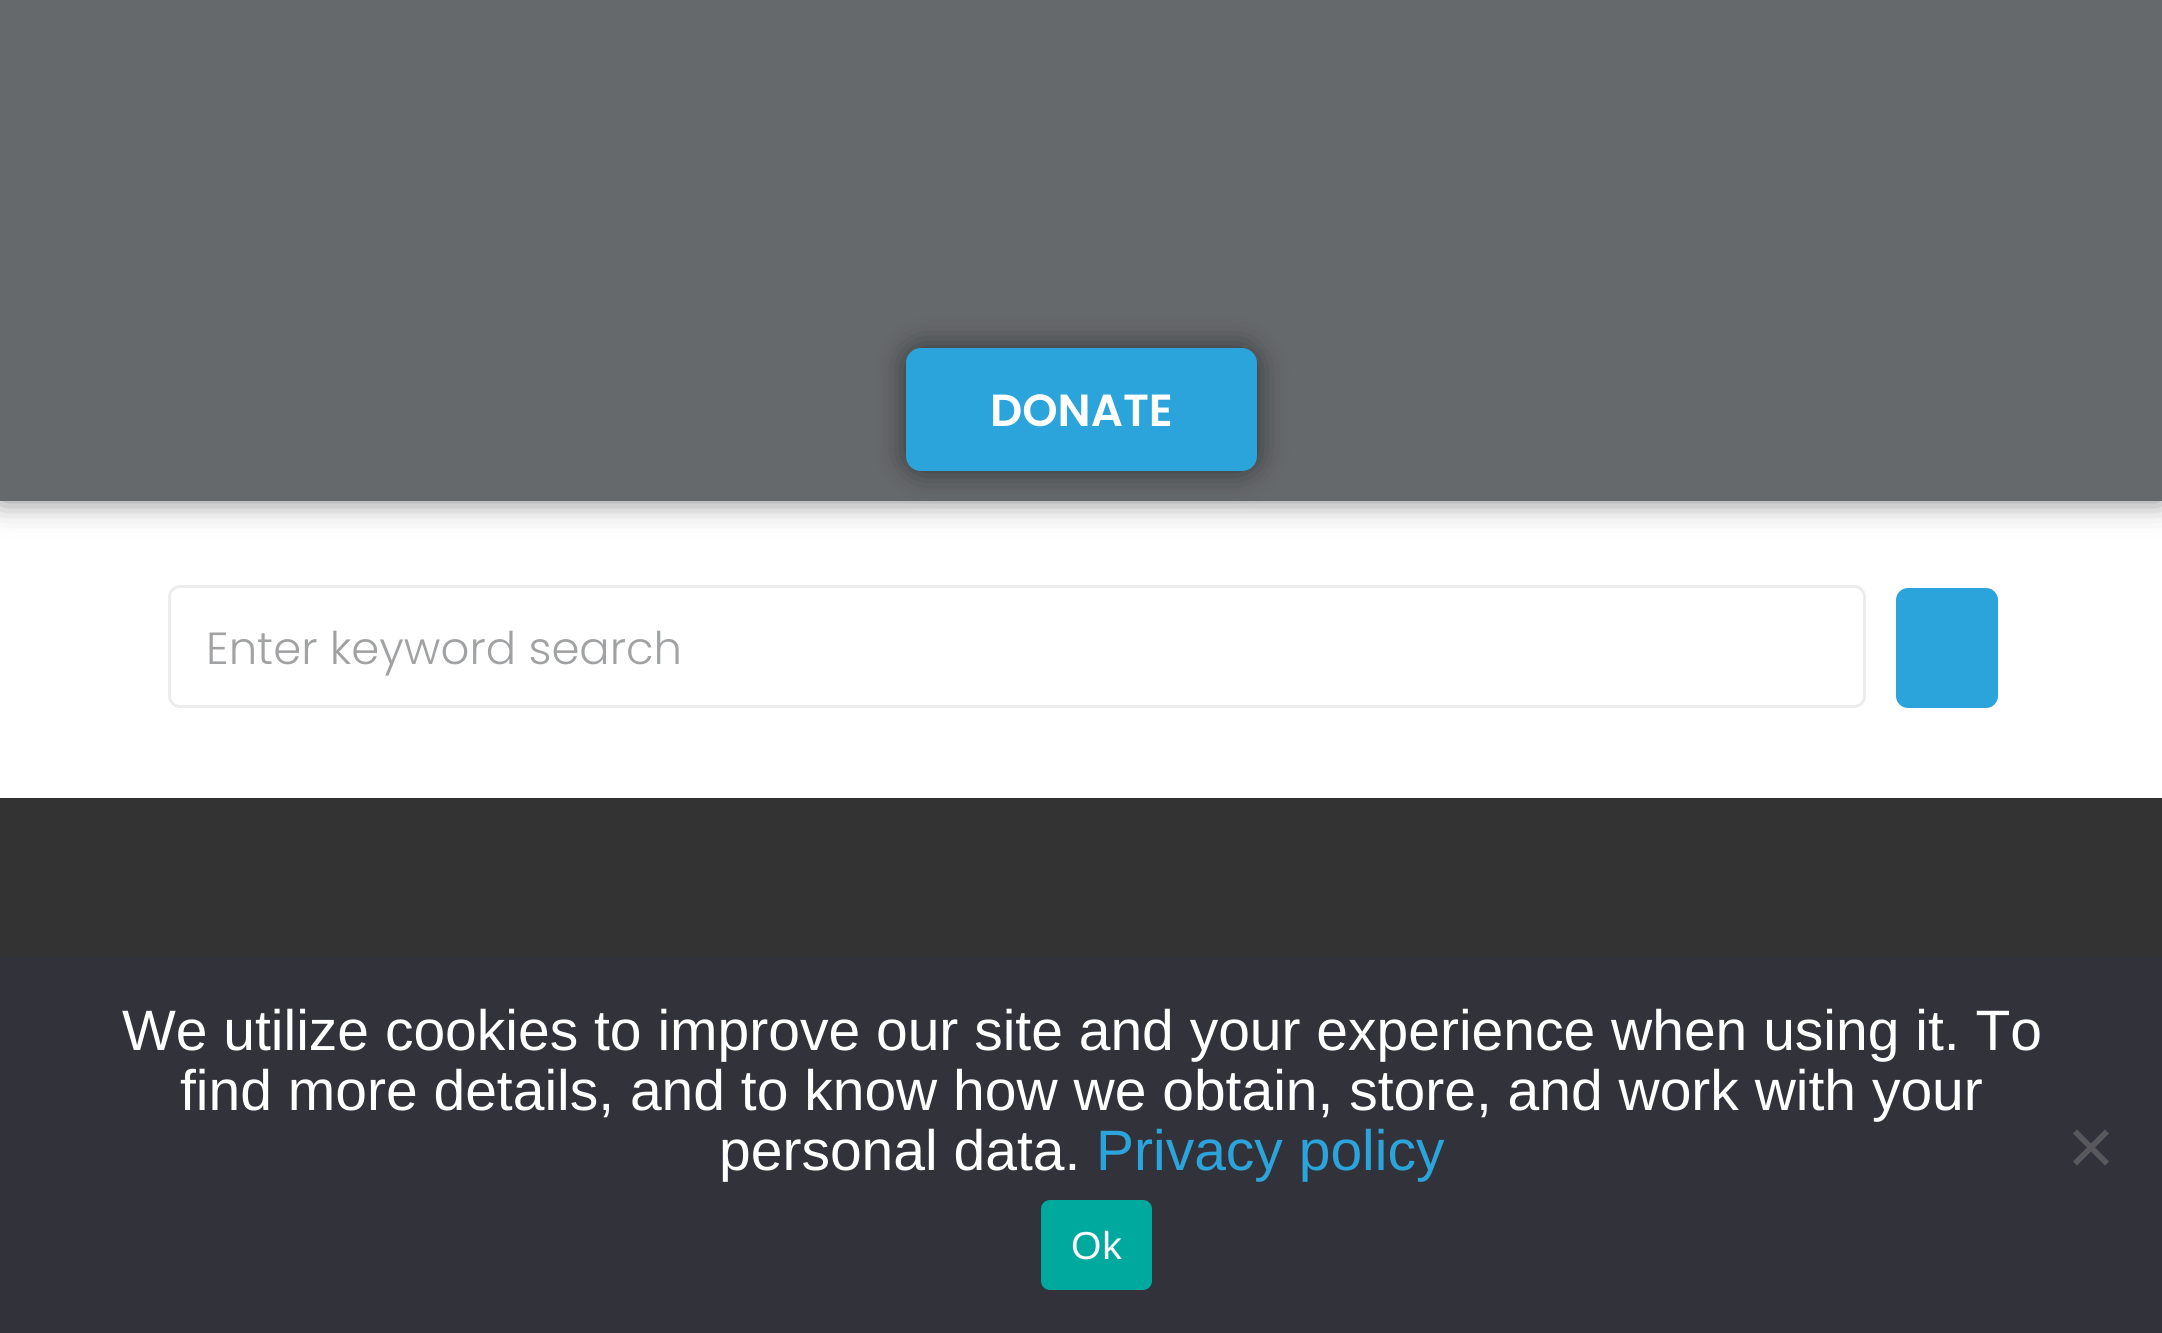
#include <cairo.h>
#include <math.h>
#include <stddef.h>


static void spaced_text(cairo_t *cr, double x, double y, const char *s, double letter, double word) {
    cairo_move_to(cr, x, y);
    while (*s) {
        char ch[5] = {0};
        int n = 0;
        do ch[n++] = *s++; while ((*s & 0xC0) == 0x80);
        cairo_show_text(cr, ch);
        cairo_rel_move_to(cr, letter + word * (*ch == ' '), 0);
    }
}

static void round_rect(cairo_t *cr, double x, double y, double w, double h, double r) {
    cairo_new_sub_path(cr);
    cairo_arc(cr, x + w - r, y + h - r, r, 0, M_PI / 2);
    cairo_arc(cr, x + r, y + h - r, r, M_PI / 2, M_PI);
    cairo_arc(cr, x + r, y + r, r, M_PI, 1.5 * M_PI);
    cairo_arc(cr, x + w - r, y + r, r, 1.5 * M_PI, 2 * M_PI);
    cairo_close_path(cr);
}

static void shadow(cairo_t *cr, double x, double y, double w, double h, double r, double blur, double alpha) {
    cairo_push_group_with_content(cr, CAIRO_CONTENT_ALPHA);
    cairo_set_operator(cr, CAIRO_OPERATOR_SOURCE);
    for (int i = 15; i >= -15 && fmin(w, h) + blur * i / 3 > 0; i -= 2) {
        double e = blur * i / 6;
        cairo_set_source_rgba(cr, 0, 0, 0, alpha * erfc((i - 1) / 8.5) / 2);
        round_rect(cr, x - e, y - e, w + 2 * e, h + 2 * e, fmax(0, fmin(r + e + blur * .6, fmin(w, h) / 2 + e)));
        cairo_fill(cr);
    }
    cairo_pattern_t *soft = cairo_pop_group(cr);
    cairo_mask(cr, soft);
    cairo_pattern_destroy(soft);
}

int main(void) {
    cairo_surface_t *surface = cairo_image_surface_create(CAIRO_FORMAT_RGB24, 2162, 1333);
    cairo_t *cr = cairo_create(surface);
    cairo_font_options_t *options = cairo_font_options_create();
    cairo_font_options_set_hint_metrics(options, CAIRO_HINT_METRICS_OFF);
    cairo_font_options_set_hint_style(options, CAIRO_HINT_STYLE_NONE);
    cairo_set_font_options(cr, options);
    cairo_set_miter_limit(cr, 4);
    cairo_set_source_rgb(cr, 1, 1, 1);
    cairo_paint(cr);
    cairo_set_source_rgb(cr, 0, 0, 0);
    shadow(cr, 0, 0, 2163, 501, 0, 15, 0.5);
    cairo_set_source_rgb(cr, 0.4, 0.412, 0.424);
    cairo_rectangle(cr, 0, 0, 2162, 501);
    cairo_fill(cr);
    cairo_set_source_rgb(cr, 0, 0, 0);
    shadow(cr, 906, 348, 351, 123, 15, 15, 0.5);
    cairo_set_source_rgb(cr, 0.169, 0.643, 0.863);
    round_rect(cr, 906, 348, 351, 123, 15);
    cairo_fill(cr);
    cairo_select_font_face(cr, "Poppins SemiBold", CAIRO_FONT_SLANT_NORMAL, CAIRO_FONT_WEIGHT_NORMAL);
    cairo_set_font_size(cr, 45);
    cairo_set_source_rgb(cr, 1, 1, 1);
    cairo_move_to(cr, 990, 426);
    cairo_show_text(cr, "DONATE");
    round_rect(cr, 169.5, 586.5, 1695, 120, 10.5);
    cairo_set_source_rgb(cr, 0.922, 0.925, 0.929);
    cairo_set_line_width(cr, 3);
    cairo_stroke(cr);
    cairo_select_font_face(cr, "Poppins Light", CAIRO_FONT_SLANT_NORMAL, CAIRO_FONT_WEIGHT_NORMAL);
    cairo_set_source_rgb(cr, 0.631, 0.635, 0.643);
    cairo_move_to(cr, 206, 664);
    cairo_show_text(cr, "Enter keyword search");
    cairo_set_source_rgb(cr, 0.169, 0.643, 0.863);
    round_rect(cr, 1896, 588, 102, 120, 12);
    cairo_fill(cr);
    cairo_set_source_rgb(cr, 0.204, 0.2, 0.2);
    cairo_rectangle(cr, 0, 798, 2162, 159);
    cairo_fill(cr);
    cairo_set_source_rgb(cr, 0.196, 0.196, 0.227);
    cairo_rectangle(cr, 0, 957, 2162, 376);
    cairo_fill(cr);
    cairo_select_font_face(cr, "Liberation Sans", CAIRO_FONT_SLANT_NORMAL, CAIRO_FONT_WEIGHT_NORMAL);
    cairo_set_font_size(cr, 57);
    cairo_set_source_rgb(cr, 1, 1, 1);
    cairo_move_to(cr, 122, 1050);
    cairo_show_text(cr, "We utilize cookies to improve our site and your experience when using it. To");
    cairo_move_to(cr, 180, 1110);
    cairo_show_text(cr, "find more details, and to know how we obtain, store, and work with your");
    cairo_move_to(cr, 719, 1170);
    cairo_show_text(cr, "personal data.");
    cairo_set_source_rgb(cr, 0.169, 0.643, 0.863);
    cairo_move_to(cr, 1096, 1170);
    cairo_show_text(cr, "Privacy policy");
    cairo_set_source_rgb(cr, 0.349, 0.349, 0.365);
    cairo_new_path(cr);
    cairo_move_to(cr, 2105, 1129.5);
    cairo_line_to(cr, 2109, 1133.5);
    cairo_line_to(cr, 2077, 1165.5);
    cairo_line_to(cr, 2073, 1161.5);
    cairo_close_path(cr);
    cairo_fill(cr);
    cairo_new_path(cr);
    cairo_move_to(cr, 2073, 1133.5);
    cairo_line_to(cr, 2077, 1129.5);
    cairo_line_to(cr, 2109, 1161.5);
    cairo_line_to(cr, 2105, 1165.5);
    cairo_close_path(cr);
    cairo_fill(cr);
    cairo_set_source_rgb(cr, 0, 0.663, 0.616);
    round_rect(cr, 1041, 1200, 111, 90, 9);
    cairo_fill(cr);
    cairo_set_font_size(cr, 39);
    cairo_set_source_rgb(cr, 1, 1, 1);
    spaced_text(cr, 1071, 1259, "Ok", 1, 0);
    cairo_surface_write_to_png(surface, "page.png");
    cairo_font_options_destroy(options);
    cairo_destroy(cr);
    cairo_surface_destroy(surface);
    return 0;
}
